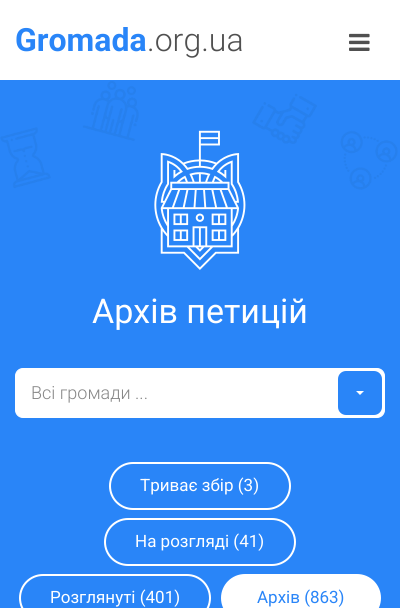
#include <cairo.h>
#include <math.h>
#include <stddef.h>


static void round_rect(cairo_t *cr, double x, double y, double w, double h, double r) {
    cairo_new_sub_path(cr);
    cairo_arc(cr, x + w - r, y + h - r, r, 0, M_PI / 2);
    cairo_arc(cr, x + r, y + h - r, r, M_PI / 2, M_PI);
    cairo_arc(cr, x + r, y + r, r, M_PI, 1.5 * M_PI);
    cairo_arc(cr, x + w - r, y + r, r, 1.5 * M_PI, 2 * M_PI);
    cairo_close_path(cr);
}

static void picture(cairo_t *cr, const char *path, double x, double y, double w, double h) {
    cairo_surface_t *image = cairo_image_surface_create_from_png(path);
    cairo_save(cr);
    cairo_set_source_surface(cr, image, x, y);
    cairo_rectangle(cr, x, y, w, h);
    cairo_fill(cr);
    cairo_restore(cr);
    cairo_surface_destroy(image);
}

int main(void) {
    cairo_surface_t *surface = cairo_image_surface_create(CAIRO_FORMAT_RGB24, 400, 608);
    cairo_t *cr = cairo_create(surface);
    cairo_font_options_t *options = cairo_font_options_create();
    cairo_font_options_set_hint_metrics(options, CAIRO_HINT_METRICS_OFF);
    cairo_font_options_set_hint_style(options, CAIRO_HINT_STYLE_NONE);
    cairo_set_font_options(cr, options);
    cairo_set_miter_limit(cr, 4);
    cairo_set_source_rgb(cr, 1, 1, 1);
    cairo_paint(cr);
    cairo_select_font_face(cr, "Roboto", CAIRO_FONT_SLANT_NORMAL, CAIRO_FONT_WEIGHT_BOLD);
    cairo_set_font_size(cr, 32);
    cairo_set_source_rgb(cr, 0.161, 0.522, 0.969);
    cairo_move_to(cr, 15, 51);
    cairo_show_text(cr, "Gromada");
    cairo_select_font_face(cr, "Roboto Light", CAIRO_FONT_SLANT_NORMAL, CAIRO_FONT_WEIGHT_NORMAL);
    cairo_set_source_rgb(cr, 0.314, 0.314, 0.314);
    cairo_move_to(cr, 147, 51);
    cairo_show_text(cr, ".org.ua");
    picture(cr, "img1.png", 349, 33, 21, 18);
    cairo_set_source_rgb(cr, 0.161, 0.522, 0.969);
    cairo_rectangle(cr, 0, 80, 400, 528);
    cairo_fill(cr);
    picture(cr, "img2.png", 0, 81, 398, 109);
    picture(cr, "img3.png", 154, 130, 92, 140);
    cairo_select_font_face(cr, "Roboto", CAIRO_FONT_SLANT_NORMAL, CAIRO_FONT_WEIGHT_NORMAL);
    cairo_set_font_size(cr, 34);
    cairo_set_source_rgb(cr, 1, 1, 1);
    cairo_move_to(cr, 92, 323);
    cairo_show_text(cr, "Архів петицій");
    round_rect(cr, 15.5, 368.5, 369, 49, 7.5);
    cairo_fill_preserve(cr);
    cairo_set_line_width(cr, 1);
    cairo_stroke(cr);
    cairo_select_font_face(cr, "Roboto Light", CAIRO_FONT_SLANT_NORMAL, CAIRO_FONT_WEIGHT_NORMAL);
    cairo_set_font_size(cr, 18);
    cairo_set_source_rgb(cr, 0.529, 0.529, 0.529);
    cairo_move_to(cr, 31, 399);
    cairo_show_text(cr, "Всі громади ...");
    cairo_set_source_rgb(cr, 0.161, 0.522, 0.969);
    round_rect(cr, 338, 371, 44, 44, 8);
    cairo_fill(cr);
    cairo_set_source_rgb(cr, 1, 1, 1);
    cairo_new_path(cr);
    cairo_move_to(cr, 356, 391);
    cairo_line_to(cr, 364, 391);
    cairo_line_to(cr, 360, 395);
    cairo_close_path(cr);
    cairo_fill(cr);
    round_rect(cr, 110, 463, 180, 46, 23);
    cairo_set_line_width(cr, 2);
    cairo_stroke(cr);
    cairo_select_font_face(cr, "Roboto", CAIRO_FONT_SLANT_NORMAL, CAIRO_FONT_WEIGHT_NORMAL);
    cairo_set_font_size(cr, 17);
    cairo_move_to(cr, 140, 491);
    cairo_show_text(cr, "Триває збір (3)");
    round_rect(cr, 105, 519, 190, 46, 23);
    cairo_stroke(cr);
    cairo_move_to(cr, 135, 547);
    cairo_show_text(cr, "На розгляді (41)");
    round_rect(cr, 20, 575, 190, 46, 23);
    cairo_stroke(cr);
    cairo_move_to(cr, 50, 603);
    cairo_show_text(cr, "Розглянуті (401)");
    round_rect(cr, 222, 575, 158, 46, 23);
    cairo_fill_preserve(cr);
    cairo_stroke(cr);
    cairo_set_source_rgb(cr, 0.161, 0.522, 0.969);
    cairo_move_to(cr, 257, 603);
    cairo_show_text(cr, "Архів (863)");
    cairo_surface_write_to_png(surface, "page.png");
    cairo_font_options_destroy(options);
    cairo_destroy(cr);
    cairo_surface_destroy(surface);
    return 0;
}
